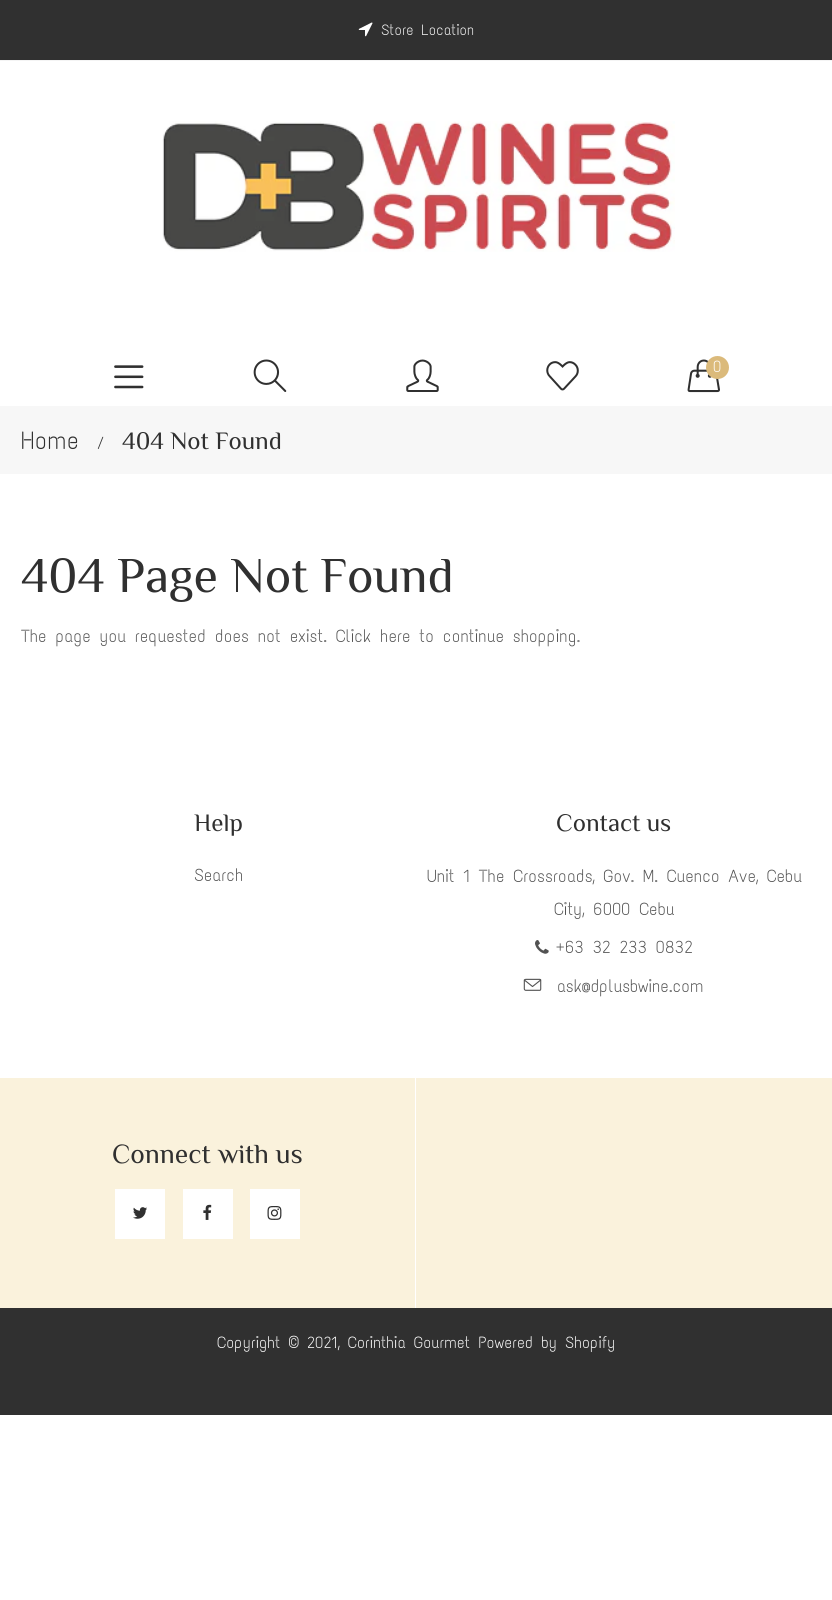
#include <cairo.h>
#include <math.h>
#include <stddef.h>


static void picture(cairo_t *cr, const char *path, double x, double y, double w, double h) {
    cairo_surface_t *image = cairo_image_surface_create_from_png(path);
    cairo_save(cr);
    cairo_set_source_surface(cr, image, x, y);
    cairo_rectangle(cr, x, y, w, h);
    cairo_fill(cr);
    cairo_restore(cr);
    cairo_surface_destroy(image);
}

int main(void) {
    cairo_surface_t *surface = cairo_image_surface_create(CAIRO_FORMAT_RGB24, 832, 1600);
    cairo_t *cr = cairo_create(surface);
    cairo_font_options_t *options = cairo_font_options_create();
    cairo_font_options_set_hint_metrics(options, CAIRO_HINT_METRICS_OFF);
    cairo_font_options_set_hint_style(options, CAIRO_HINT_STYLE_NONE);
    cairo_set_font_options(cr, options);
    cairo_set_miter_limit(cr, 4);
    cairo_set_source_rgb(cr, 1, 1, 1);
    cairo_paint(cr);
    cairo_set_source_rgb(cr, 0.188, 0.188, 0.188);
    cairo_rectangle(cr, 0, 0, 832, 60);
    cairo_fill(cr);
    cairo_set_source_rgb(cr, 0.957, 0.957, 0.957);
    cairo_rectangle(cr, 0, 60, 832, 1);
    cairo_fill(cr);
    picture(cr, "img1.png", 358, 22, 15, 15);
    cairo_select_font_face(cr, "Text Me One", CAIRO_FONT_SLANT_NORMAL, CAIRO_FONT_WEIGHT_NORMAL);
    cairo_set_font_size(cr, 15);
    cairo_set_source_rgb(cr, 1, 1, 1);
    cairo_move_to(cr, 381, 35);
    cairo_show_text(cr, "Store Location");
    picture(cr, "img2.png", 162, 121, 513, 131);
    picture(cr, "img3.png", 114, 365, 30, 24);
    picture(cr, "img4.png", 253, 359, 34, 33);
    picture(cr, "img5.png", 406, 359, 33, 33);
    picture(cr, "img6.png", 546, 361, 33, 30);
    picture(cr, "img7.png", 687, 359, 33, 34);
    cairo_set_source_rgb(cr, 0.859, 0.729, 0.482);
    cairo_arc(cr, 717.5, 367.5, 11.5, 0, 2 * M_PI);
    cairo_fill(cr);
    cairo_set_font_size(cr, 16.25);
    cairo_set_source_rgb(cr, 1, 1, 1);
    cairo_move_to(cr, 713, 372);
    cairo_show_text(cr, "0");
    cairo_set_source_rgb(cr, 0.965, 0.965, 0.965);
    cairo_rectangle(cr, 0, 406, 832, 68);
    cairo_fill(cr);
    cairo_set_font_size(cr, 25);
    cairo_set_source_rgb(cr, 0.188, 0.188, 0.188);
    cairo_move_to(cr, 21, 449);
    cairo_show_text(cr, "Home");
    cairo_set_font_size(cr, 17.5);
    cairo_move_to(cr, 98, 449);
    cairo_show_text(cr, "/");
    cairo_select_font_face(cr, "Philosopher", CAIRO_FONT_SLANT_NORMAL, CAIRO_FONT_WEIGHT_NORMAL);
    cairo_set_font_size(cr, 25);
    cairo_move_to(cr, 122, 449);
    cairo_show_text(cr, "404 Not Found");
    cairo_set_font_size(cr, 50);
    cairo_move_to(cr, 21, 592);
    cairo_show_text(cr, "404 Page Not Found");
    cairo_select_font_face(cr, "Text Me One", CAIRO_FONT_SLANT_NORMAL, CAIRO_FONT_WEIGHT_NORMAL);
    cairo_set_font_size(cr, 17.5);
    cairo_set_source_rgb(cr, 0.322, 0.322, 0.322);
    cairo_move_to(cr, 21, 642);
    cairo_show_text(cr, "The page you requested does not exist. Click here to continue shopping.");
    cairo_select_font_face(cr, "Philosopher", CAIRO_FONT_SLANT_NORMAL, CAIRO_FONT_WEIGHT_NORMAL);
    cairo_set_font_size(cr, 25);
    cairo_set_source_rgb(cr, 0.188, 0.188, 0.188);
    cairo_move_to(cr, 194, 831);
    cairo_show_text(cr, "Help");
    cairo_select_font_face(cr, "Text Me One", CAIRO_FONT_SLANT_NORMAL, CAIRO_FONT_WEIGHT_NORMAL);
    cairo_set_font_size(cr, 17.5);
    cairo_set_source_rgb(cr, 0.322, 0.322, 0.322);
    cairo_move_to(cr, 194, 881);
    cairo_show_text(cr, "Search");
    cairo_select_font_face(cr, "Philosopher", CAIRO_FONT_SLANT_NORMAL, CAIRO_FONT_WEIGHT_NORMAL);
    cairo_set_font_size(cr, 25);
    cairo_set_source_rgb(cr, 0.188, 0.188, 0.188);
    cairo_move_to(cr, 556, 831);
    cairo_show_text(cr, "Contact us");
    cairo_select_font_face(cr, "Text Me One", CAIRO_FONT_SLANT_NORMAL, CAIRO_FONT_WEIGHT_NORMAL);
    cairo_set_font_size(cr, 17.5);
    cairo_set_source_rgb(cr, 0.322, 0.322, 0.322);
    cairo_move_to(cr, 427, 882);
    cairo_show_text(cr, "Unit 1 The Crossroads, Gov. M. Cuenco Ave, Cebu");
    cairo_move_to(cr, 554, 915);
    cairo_show_text(cr, "City, 6000 Cebu");
    picture(cr, "img8.png", 535, 940, 14, 14);
    cairo_move_to(cr, 556, 953);
    cairo_show_text(cr, "+63 32 233 0832");
    picture(cr, "img9.png", 523, 978, 19, 13);
    cairo_move_to(cr, 557, 992);
    cairo_show_text(cr, "ask@dplusbwine.com");
    cairo_set_source_rgb(cr, 0.98, 0.949, 0.863);
    cairo_rectangle(cr, 0, 1078, 832, 230);
    cairo_fill(cr);
    cairo_set_source_rgb(cr, 1, 1, 1);
    cairo_rectangle(cr, 415, 1078, 1, 230);
    cairo_fill(cr);
    cairo_select_font_face(cr, "Philosopher", CAIRO_FONT_SLANT_NORMAL, CAIRO_FONT_WEIGHT_NORMAL);
    cairo_set_font_size(cr, 27.5);
    cairo_set_source_rgb(cr, 0.188, 0.188, 0.188);
    cairo_move_to(cr, 112, 1163);
    cairo_show_text(cr, "Connect with us");
    cairo_set_source_rgb(cr, 1, 1, 1);
    cairo_rectangle(cr, 115, 1189, 50, 50);
    cairo_fill(cr);
    picture(cr, "img10.png", 133, 1207, 14, 12);
    cairo_rectangle(cr, 183, 1189, 50, 50);
    cairo_fill(cr);
    picture(cr, "img11.png", 203, 1204, 9, 16);
    cairo_rectangle(cr, 250, 1189, 50, 50);
    cairo_fill(cr);
    picture(cr, "img12.png", 267, 1206, 15, 14);
    cairo_set_source_rgb(cr, 0.188, 0.188, 0.188);
    cairo_rectangle(cr, 0, 1308, 832, 107);
    cairo_fill(cr);
    cairo_select_font_face(cr, "Text Me One", CAIRO_FONT_SLANT_NORMAL, CAIRO_FONT_WEIGHT_NORMAL);
    cairo_set_font_size(cr, 16.25);
    cairo_set_source_rgb(cr, 1, 1, 1);
    cairo_move_to(cr, 217, 1348);
    cairo_show_text(cr, "Copyright © 2021, Corinthia Gourmet Powered by Shopify");
    cairo_surface_write_to_png(surface, "page.png");
    cairo_font_options_destroy(options);
    cairo_destroy(cr);
    cairo_surface_destroy(surface);
    return 0;
}
